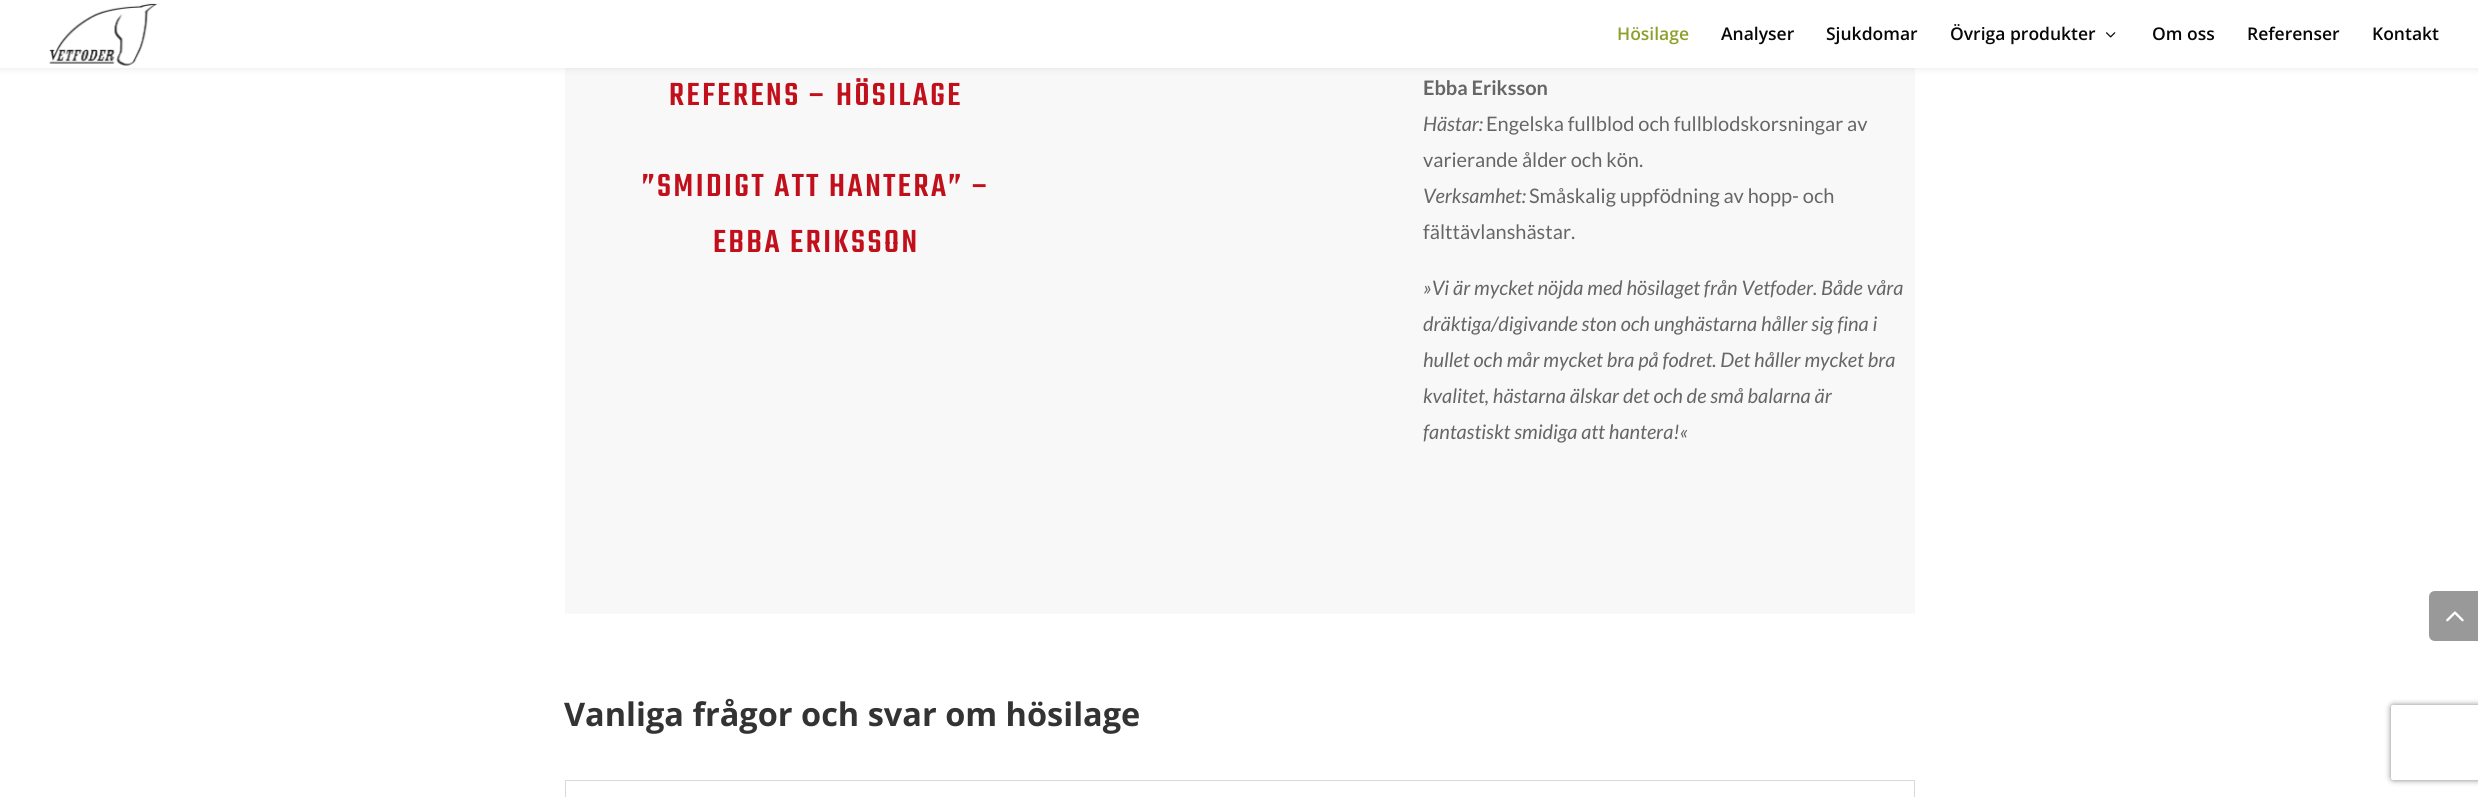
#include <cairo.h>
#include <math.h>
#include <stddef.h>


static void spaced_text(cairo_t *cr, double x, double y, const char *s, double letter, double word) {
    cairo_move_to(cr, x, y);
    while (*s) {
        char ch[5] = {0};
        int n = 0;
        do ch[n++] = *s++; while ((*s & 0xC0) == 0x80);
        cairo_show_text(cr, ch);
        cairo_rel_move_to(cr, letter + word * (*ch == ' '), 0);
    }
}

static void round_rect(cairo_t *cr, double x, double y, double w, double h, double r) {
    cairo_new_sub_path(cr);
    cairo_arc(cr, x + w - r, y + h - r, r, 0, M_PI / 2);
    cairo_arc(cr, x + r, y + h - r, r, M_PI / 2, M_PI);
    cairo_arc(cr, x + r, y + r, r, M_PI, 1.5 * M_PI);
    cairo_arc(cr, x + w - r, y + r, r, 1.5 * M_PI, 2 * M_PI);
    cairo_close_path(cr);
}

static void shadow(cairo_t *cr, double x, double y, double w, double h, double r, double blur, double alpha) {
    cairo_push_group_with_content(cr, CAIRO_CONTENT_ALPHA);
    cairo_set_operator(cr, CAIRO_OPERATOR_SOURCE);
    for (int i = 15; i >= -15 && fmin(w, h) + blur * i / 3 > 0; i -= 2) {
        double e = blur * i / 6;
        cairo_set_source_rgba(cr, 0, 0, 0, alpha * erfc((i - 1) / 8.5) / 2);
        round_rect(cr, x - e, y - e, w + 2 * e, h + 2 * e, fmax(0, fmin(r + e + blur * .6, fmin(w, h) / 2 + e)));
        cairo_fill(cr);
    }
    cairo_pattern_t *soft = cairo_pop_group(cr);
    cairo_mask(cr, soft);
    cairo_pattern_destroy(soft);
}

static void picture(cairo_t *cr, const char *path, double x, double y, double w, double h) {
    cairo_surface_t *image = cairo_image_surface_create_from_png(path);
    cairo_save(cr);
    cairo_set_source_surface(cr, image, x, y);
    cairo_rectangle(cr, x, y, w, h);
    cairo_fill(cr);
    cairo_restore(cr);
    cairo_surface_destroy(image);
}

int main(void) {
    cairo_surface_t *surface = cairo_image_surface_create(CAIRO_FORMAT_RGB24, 2478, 797);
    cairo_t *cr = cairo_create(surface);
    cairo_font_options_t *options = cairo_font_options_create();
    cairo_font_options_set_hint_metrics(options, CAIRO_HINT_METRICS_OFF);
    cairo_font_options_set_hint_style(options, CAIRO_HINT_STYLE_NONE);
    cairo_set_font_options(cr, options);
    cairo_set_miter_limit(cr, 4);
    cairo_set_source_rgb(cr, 1, 1, 1);
    cairo_paint(cr);
    cairo_set_source_rgb(cr, 0.969, 0.969, 0.969);
    cairo_rectangle(cr, 565, 68, 1350, 546);
    cairo_fill(cr);
    cairo_set_source_rgb(cr, 0, 0, 0);
    shadow(cr, 0, 0, 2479, 68, 0, 4.5, 0.1);
    cairo_set_source_rgb(cr, 1, 1, 1);
    cairo_rectangle(cr, 0, 0, 2478, 68);
    cairo_fill(cr);
    picture(cr, "img1.png", 49, 3, 109, 63);
    cairo_select_font_face(cr, "Open Sans SemiBold", CAIRO_FONT_SLANT_NORMAL, CAIRO_FONT_WEIGHT_NORMAL);
    cairo_set_font_size(cr, 17.5);
    cairo_set_source_rgb(cr, 0.553, 0.627, 0.169);
    cairo_move_to(cr, 1617, 40);
    cairo_show_text(cr, "Hösilage");
    cairo_set_source_rgb(cr, 0.031, 0.031, 0.031);
    cairo_move_to(cr, 1721, 40);
    cairo_show_text(cr, "Analyser");
    cairo_move_to(cr, 1826, 40);
    cairo_show_text(cr, "Sjukdomar");
    cairo_move_to(cr, 1950, 40);
    cairo_show_text(cr, "Övriga produkter");
    picture(cr, "img2.png", 2106, 32, 10, 6);
    cairo_move_to(cr, 2152, 40);
    cairo_show_text(cr, "Om oss");
    cairo_move_to(cr, 2247, 40);
    cairo_show_text(cr, "Referenser");
    cairo_move_to(cr, 2372, 40);
    cairo_show_text(cr, "Kontakt");
    cairo_select_font_face(cr, "Teko Light", CAIRO_FONT_SLANT_NORMAL, CAIRO_FONT_WEIGHT_NORMAL);
    cairo_set_font_size(cr, 35);
    cairo_set_source_rgb(cr, 0.757, 0.059, 0.106);
    spaced_text(cr, 669, 105, "REFERENS – HÖSILAGE", 2.5, 0);
    spaced_text(cr, 642, 196, "”SMIDIGT ATT HANTERA” –", 2.5, 0);
    spaced_text(cr, 713, 252, "EBBA ERIKSSON", 2.5, 0);
    cairo_select_font_face(cr, "Lato", CAIRO_FONT_SLANT_NORMAL, CAIRO_FONT_WEIGHT_BOLD);
    cairo_set_font_size(cr, 20);
    cairo_set_source_rgb(cr, 0.4, 0.4, 0.4);
    cairo_move_to(cr, 1423, 95);
    cairo_show_text(cr, "Ebba Eriksson");
    cairo_select_font_face(cr, "Lato", CAIRO_FONT_SLANT_ITALIC, CAIRO_FONT_WEIGHT_NORMAL);
    cairo_move_to(cr, 1423, 131);
    cairo_show_text(cr, "Hästar:");
    cairo_select_font_face(cr, "Lato", CAIRO_FONT_SLANT_NORMAL, CAIRO_FONT_WEIGHT_NORMAL);
    cairo_move_to(cr, 1486, 131);
    cairo_show_text(cr, "Engelska fullblod och fullblodskorsningar av");
    cairo_move_to(cr, 1423, 167);
    cairo_show_text(cr, "varierande ålder och kön.");
    cairo_select_font_face(cr, "Lato", CAIRO_FONT_SLANT_ITALIC, CAIRO_FONT_WEIGHT_NORMAL);
    cairo_move_to(cr, 1423, 203);
    cairo_show_text(cr, "Verksamhet:");
    cairo_select_font_face(cr, "Lato", CAIRO_FONT_SLANT_NORMAL, CAIRO_FONT_WEIGHT_NORMAL);
    cairo_move_to(cr, 1529, 203);
    cairo_show_text(cr, "Småskalig uppfödning av hopp- och");
    cairo_move_to(cr, 1423, 239);
    cairo_show_text(cr, "fälttävlanshästar.");
    cairo_select_font_face(cr, "Lato", CAIRO_FONT_SLANT_ITALIC, CAIRO_FONT_WEIGHT_NORMAL);
    cairo_move_to(cr, 1423, 295);
    cairo_show_text(cr, "»Vi är mycket nöjda med hösilaget från Vetfoder. Både våra");
    cairo_move_to(cr, 1423, 331);
    cairo_show_text(cr, "dräktiga/digivande ston och unghästarna håller sig fina i");
    cairo_move_to(cr, 1423, 367);
    cairo_show_text(cr, "hullet och mår mycket bra på fodret. Det håller mycket bra");
    cairo_move_to(cr, 1423, 403);
    cairo_show_text(cr, "kvalitet, hästarna älskar det och de små balarna är");
    cairo_move_to(cr, 1423, 439);
    cairo_show_text(cr, "fantastiskt smidiga att hantera!«");
    cairo_select_font_face(cr, "Open Sans", CAIRO_FONT_SLANT_NORMAL, CAIRO_FONT_WEIGHT_BOLD);
    cairo_set_font_size(cr, 32.5);
    cairo_set_source_rgb(cr, 0.2, 0.2, 0.2);
    cairo_move_to(cr, 564, 726);
    cairo_show_text(cr, "Vanliga frågor och svar om hösilage");
    cairo_rectangle(cr, 565.5, 780.5, 1349, 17);
    cairo_set_source_rgb(cr, 0.851, 0.851, 0.851);
    cairo_set_line_width(cr, 1);
    cairo_stroke(cr);
    cairo_set_source_rgb(cr, 0.6, 0.6, 0.6);
    cairo_new_path(cr);
    cairo_move_to(cr, 2435, 591);
    cairo_line_to(cr, 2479, 591);
    cairo_line_to(cr, 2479, 641);
    cairo_line_to(cr, 2435, 641);
    cairo_curve_to(cr, 2431.5, 641, 2429, 638.5, 2429, 635);
    cairo_line_to(cr, 2429, 597);
    cairo_curve_to(cr, 2429, 593.5, 2431.5, 591, 2435, 591);
    cairo_close_path(cr);
    cairo_fill(cr);
    picture(cr, "img3.png", 2446, 611, 18, 11);
    cairo_save(cr);
    cairo_set_fill_rule(cr, CAIRO_FILL_RULE_EVEN_ODD);
    cairo_new_path(cr);
    cairo_move_to(cr, 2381, 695);
    cairo_line_to(cr, 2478, 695);
    cairo_line_to(cr, 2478, 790);
    cairo_line_to(cr, 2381, 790);
    cairo_close_path(cr);
    cairo_move_to(cr, 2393.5, 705);
    cairo_line_to(cr, 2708.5, 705);
    cairo_curve_to(cr, 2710, 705, 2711, 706, 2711, 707.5);
    cairo_line_to(cr, 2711, 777.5);
    cairo_curve_to(cr, 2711, 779, 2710, 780, 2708.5, 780);
    cairo_line_to(cr, 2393.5, 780);
    cairo_curve_to(cr, 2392, 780, 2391, 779, 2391, 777.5);
    cairo_line_to(cr, 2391, 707.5);
    cairo_curve_to(cr, 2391, 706, 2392, 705, 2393.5, 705);
    cairo_close_path(cr);
    cairo_clip(cr);
    cairo_set_source_rgb(cr, 0.502, 0.502, 0.502);
    shadow(cr, 2391, 705, 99, 75, 2.5, 3, 1);
    cairo_restore(cr);
    cairo_surface_write_to_png(surface, "page.png");
    cairo_font_options_destroy(options);
    cairo_destroy(cr);
    cairo_surface_destroy(surface);
    return 0;
}
